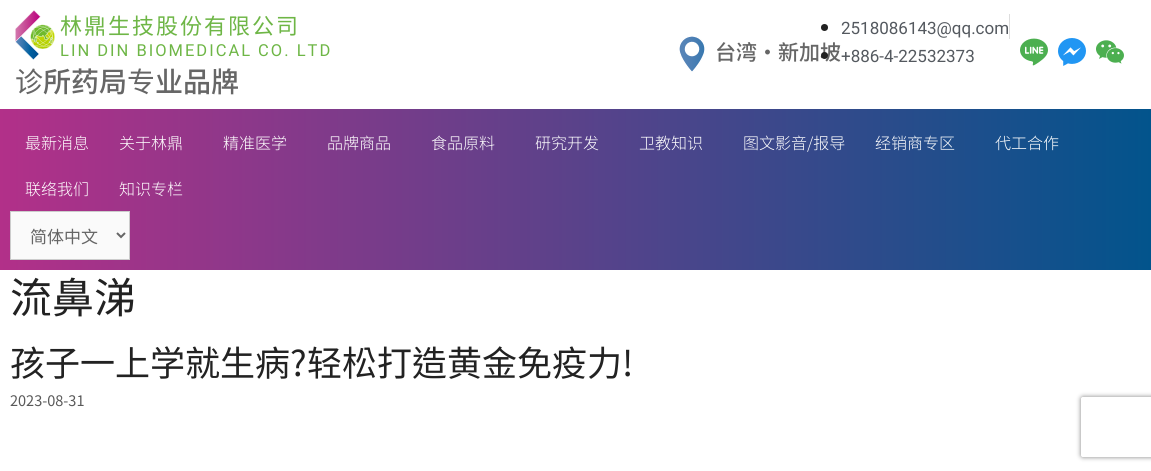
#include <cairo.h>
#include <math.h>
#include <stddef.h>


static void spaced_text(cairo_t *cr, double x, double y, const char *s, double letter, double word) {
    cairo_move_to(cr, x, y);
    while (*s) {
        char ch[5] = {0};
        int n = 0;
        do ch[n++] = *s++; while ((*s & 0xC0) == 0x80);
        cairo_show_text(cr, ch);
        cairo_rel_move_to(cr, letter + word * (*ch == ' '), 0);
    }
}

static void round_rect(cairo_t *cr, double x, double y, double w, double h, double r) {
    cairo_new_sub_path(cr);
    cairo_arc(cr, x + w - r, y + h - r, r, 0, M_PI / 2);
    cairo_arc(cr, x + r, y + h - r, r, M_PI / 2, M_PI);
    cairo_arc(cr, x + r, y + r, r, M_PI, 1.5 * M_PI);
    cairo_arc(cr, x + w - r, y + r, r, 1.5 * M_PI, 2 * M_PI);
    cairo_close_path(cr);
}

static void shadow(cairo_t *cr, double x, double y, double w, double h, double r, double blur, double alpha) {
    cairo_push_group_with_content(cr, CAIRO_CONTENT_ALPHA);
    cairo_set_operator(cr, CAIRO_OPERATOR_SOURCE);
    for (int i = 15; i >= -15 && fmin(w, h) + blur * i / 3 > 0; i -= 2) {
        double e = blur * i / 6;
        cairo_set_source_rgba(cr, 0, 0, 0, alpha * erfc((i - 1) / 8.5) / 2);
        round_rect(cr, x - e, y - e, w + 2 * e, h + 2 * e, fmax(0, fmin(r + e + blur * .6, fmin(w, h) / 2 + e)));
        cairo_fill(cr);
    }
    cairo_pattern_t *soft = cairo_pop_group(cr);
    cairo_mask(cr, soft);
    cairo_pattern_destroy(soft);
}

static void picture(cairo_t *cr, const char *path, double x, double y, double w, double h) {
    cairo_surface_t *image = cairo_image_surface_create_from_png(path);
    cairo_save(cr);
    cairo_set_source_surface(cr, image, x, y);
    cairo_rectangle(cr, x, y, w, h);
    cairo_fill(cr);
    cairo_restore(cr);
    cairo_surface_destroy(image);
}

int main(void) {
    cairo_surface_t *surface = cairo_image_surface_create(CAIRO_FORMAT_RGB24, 1151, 471);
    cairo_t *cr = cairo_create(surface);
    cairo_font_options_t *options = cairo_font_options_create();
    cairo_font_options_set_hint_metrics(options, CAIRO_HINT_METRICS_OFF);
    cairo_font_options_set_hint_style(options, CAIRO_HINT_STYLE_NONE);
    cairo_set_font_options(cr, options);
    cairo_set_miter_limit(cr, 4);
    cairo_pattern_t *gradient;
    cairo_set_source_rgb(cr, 1, 1, 1);
    cairo_paint(cr);
    picture(cr, "img1.png", 15, 10, 40, 50);
    cairo_select_font_face(cr, "Noto Sans CJK SC", CAIRO_FONT_SLANT_NORMAL, CAIRO_FONT_WEIGHT_NORMAL);
    cairo_set_font_size(cr, 22);
    cairo_set_source_rgb(cr, 0.431, 0.714, 0.275);
    spaced_text(cr, 60, 34, "林鼎生技股份有限公司", 2, 0);
    cairo_select_font_face(cr, "Roboto", CAIRO_FONT_SLANT_NORMAL, CAIRO_FONT_WEIGHT_NORMAL);
    cairo_set_font_size(cr, 16.5);
    spaced_text(cr, 60, 56, "LIN DIN BIOMEDICAL CO. LTD", 2, 0);
    cairo_select_font_face(cr, "Noto Sans CJK SC", CAIRO_FONT_SLANT_NORMAL, CAIRO_FONT_WEIGHT_NORMAL);
    cairo_set_font_size(cr, 28);
    cairo_set_source_rgb(cr, 0.4, 0.4, 0.4);
    cairo_move_to(cr, 15, 92);
    cairo_show_text(cr, "诊");
    cairo_select_font_face(cr, "Noto Sans TC Medium", CAIRO_FONT_SLANT_NORMAL, CAIRO_FONT_WEIGHT_NORMAL);
    cairo_move_to(cr, 43, 92);
    cairo_show_text(cr, "所药局");
    cairo_select_font_face(cr, "Noto Sans CJK SC", CAIRO_FONT_SLANT_NORMAL, CAIRO_FONT_WEIGHT_NORMAL);
    cairo_move_to(cr, 127, 92);
    cairo_show_text(cr, "专");
    cairo_select_font_face(cr, "Noto Sans TC Medium", CAIRO_FONT_SLANT_NORMAL, CAIRO_FONT_WEIGHT_NORMAL);
    cairo_move_to(cr, 155, 92);
    cairo_show_text(cr, "业品牌");
    picture(cr, "img2.png", 679, 36, 26, 36);
    cairo_select_font_face(cr, "Noto Sans SC Medium", CAIRO_FONT_SLANT_NORMAL, CAIRO_FONT_WEIGHT_NORMAL);
    cairo_set_font_size(cr, 21);
    cairo_move_to(cr, 715, 60);
    cairo_show_text(cr, "台湾·新加坡");
    cairo_set_source_rgb(cr, 0.133, 0.133, 0.133);
    cairo_new_path(cr);
    cairo_arc(cr, 824.5, 27.5, 3.5, 0, 2 * M_PI);
    cairo_fill(cr);
    cairo_select_font_face(cr, "Roboto", CAIRO_FONT_SLANT_NORMAL, CAIRO_FONT_WEIGHT_NORMAL);
    cairo_set_font_size(cr, 17);
    cairo_set_source_rgb(cr, 0.329, 0.349, 0.373);
    cairo_move_to(cr, 841, 34);
    cairo_show_text(cr, "2518086143@qq.com");
    cairo_set_source_rgb(cr, 0.867, 0.867, 0.867);
    cairo_rectangle(cr, 1009, 14, 1, 25);
    cairo_fill(cr);
    cairo_set_source_rgb(cr, 0.133, 0.133, 0.133);
    cairo_arc(cr, 824.5, 55.5, 3.5, 0, 2 * M_PI);
    cairo_fill(cr);
    cairo_set_source_rgb(cr, 0.329, 0.349, 0.373);
    cairo_move_to(cr, 841, 62);
    cairo_show_text(cr, "+886-4-22532373");
    picture(cr, "img3.png", 1020, 38, 28, 28);
    picture(cr, "img4.png", 1058, 38, 28, 28);
    picture(cr, "img5.png", 1096, 40, 28, 24);
    gradient = cairo_pattern_create_linear(1151, 189, 0, 190);
    cairo_pattern_add_color_stop_rgba(gradient, 0, 0.008, 0.329, 0.549, 1);
    cairo_pattern_add_color_stop_rgba(gradient, 1, 0.698, 0.188, 0.537, 1);
    cairo_set_source(cr, gradient);
    cairo_pattern_destroy(gradient);
    cairo_rectangle(cr, 0, 109, 1151, 161);
    cairo_fill(cr);
    cairo_select_font_face(cr, "Noto Sans SC Light", CAIRO_FONT_SLANT_NORMAL, CAIRO_FONT_WEIGHT_NORMAL);
    cairo_set_font_size(cr, 16);
    cairo_set_source_rgb(cr, 1, 1, 1);
    cairo_move_to(cr, 25, 149);
    cairo_show_text(cr, "最新消息");
    cairo_move_to(cr, 119, 149);
    cairo_show_text(cr, "关于林鼎");
    cairo_move_to(cr, 223, 149);
    cairo_show_text(cr, "精准医学");
    cairo_move_to(cr, 327, 149);
    cairo_show_text(cr, "品牌商品");
    cairo_move_to(cr, 431, 149);
    cairo_show_text(cr, "食品原料");
    cairo_move_to(cr, 535, 149);
    cairo_show_text(cr, "研究开发");
    cairo_move_to(cr, 639, 149);
    cairo_show_text(cr, "卫教知识");
    cairo_move_to(cr, 743, 149);
    cairo_show_text(cr, "图文影音/报导");
    cairo_move_to(cr, 875, 149);
    cairo_show_text(cr, "经销商专区");
    cairo_move_to(cr, 995, 149);
    cairo_show_text(cr, "代工合作");
    cairo_move_to(cr, 25, 195);
    cairo_show_text(cr, "联络我们");
    cairo_move_to(cr, 119, 195);
    cairo_show_text(cr, "知识专栏");
    cairo_set_source_rgb(cr, 0.98, 0.98, 0.98);
    cairo_rectangle(cr, 10.5, 211.5, 119, 48);
    cairo_fill_preserve(cr);
    cairo_set_source_rgb(cr, 0.8, 0.8, 0.8);
    cairo_set_line_width(cr, 1);
    cairo_stroke(cr);
    cairo_new_path(cr);
    cairo_move_to(cr, 117, 233);
    cairo_line_to(cr, 121, 237);
    cairo_line_to(cr, 125, 233);
    cairo_set_source_rgb(cr, 0.4, 0.4, 0.4);
    cairo_set_line_width(cr, 2);
    cairo_stroke(cr);
    cairo_select_font_face(cr, "Noto Sans CJK SC", CAIRO_FONT_SLANT_NORMAL, CAIRO_FONT_WEIGHT_NORMAL);
    cairo_set_font_size(cr, 17);
    cairo_move_to(cr, 30, 243);
    cairo_show_text(cr, "简");
    cairo_select_font_face(cr, "Noto Sans TC", CAIRO_FONT_SLANT_NORMAL, CAIRO_FONT_WEIGHT_NORMAL);
    cairo_move_to(cr, 47, 243);
    cairo_show_text(cr, "体中文");
    cairo_set_font_size(cr, 42);
    cairo_set_source_rgb(cr, 0.133, 0.133, 0.133);
    cairo_move_to(cr, 10, 313);
    cairo_show_text(cr, "流鼻涕");
    cairo_set_font_size(cr, 35);
    cairo_move_to(cr, 10, 376);
    cairo_show_text(cr, "孩子一上学就生病?");
    cairo_select_font_face(cr, "Noto Sans CJK SC", CAIRO_FONT_SLANT_NORMAL, CAIRO_FONT_WEIGHT_NORMAL);
    cairo_move_to(cr, 307, 376);
    cairo_show_text(cr, "轻");
    cairo_select_font_face(cr, "Noto Sans TC", CAIRO_FONT_SLANT_NORMAL, CAIRO_FONT_WEIGHT_NORMAL);
    cairo_move_to(cr, 342, 376);
    cairo_show_text(cr, "松打造黄金免疫力!");
    cairo_set_font_size(cr, 14.5);
    cairo_set_source_rgb(cr, 0.349, 0.349, 0.349);
    cairo_move_to(cr, 10, 406);
    cairo_show_text(cr, "2023-08-31");
    cairo_save(cr);
    cairo_set_fill_rule(cr, CAIRO_FILL_RULE_EVEN_ODD);
    cairo_new_path(cr);
    cairo_move_to(cr, 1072, 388);
    cairo_line_to(cr, 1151, 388);
    cairo_line_to(cr, 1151, 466);
    cairo_line_to(cr, 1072, 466);
    cairo_close_path(cr);
    cairo_move_to(cr, 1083, 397);
    cairo_line_to(cr, 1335, 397);
    cairo_curve_to(cr, 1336, 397, 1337, 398, 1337, 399);
    cairo_line_to(cr, 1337, 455);
    cairo_curve_to(cr, 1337, 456, 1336, 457, 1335, 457);
    cairo_line_to(cr, 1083, 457);
    cairo_curve_to(cr, 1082, 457, 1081, 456, 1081, 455);
    cairo_line_to(cr, 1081, 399);
    cairo_curve_to(cr, 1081, 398, 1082, 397, 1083, 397);
    cairo_close_path(cr);
    cairo_clip(cr);
    cairo_set_source_rgb(cr, 0.502, 0.502, 0.502);
    shadow(cr, 1081, 397, 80, 60, 2, 2.5, 1);
    cairo_restore(cr);
    cairo_surface_write_to_png(surface, "page.png");
    cairo_font_options_destroy(options);
    cairo_destroy(cr);
    cairo_surface_destroy(surface);
    return 0;
}
